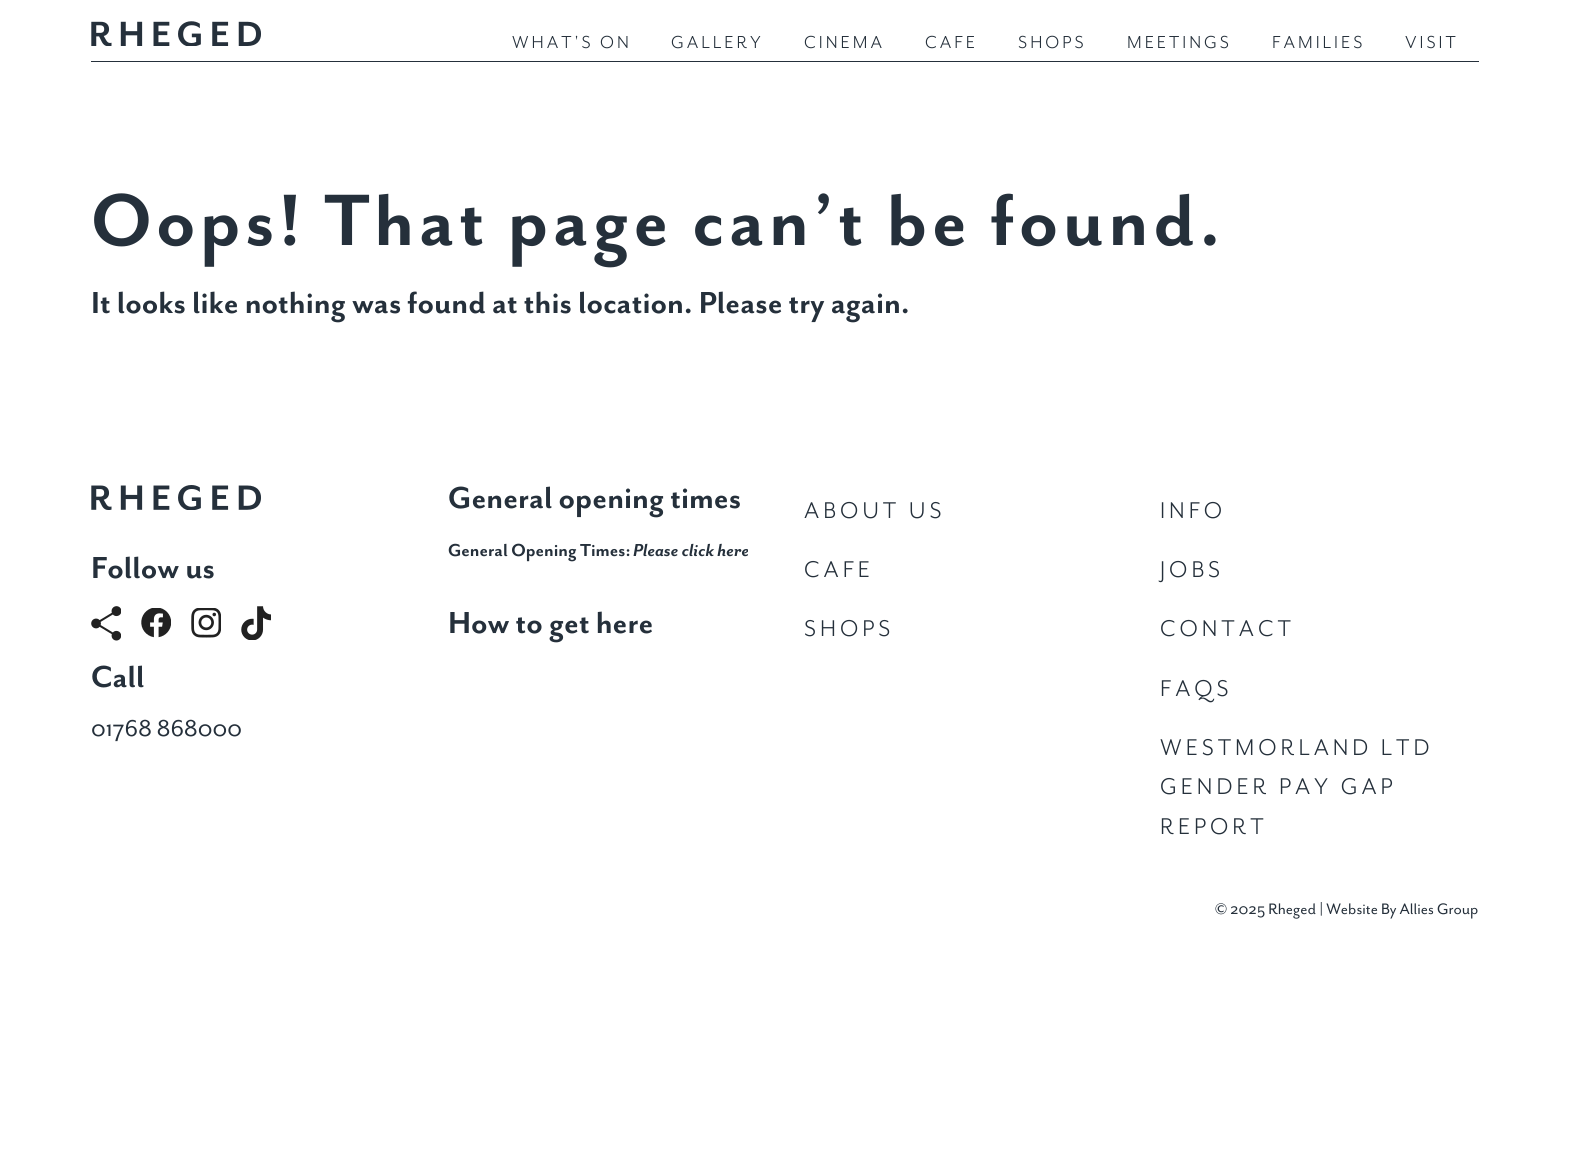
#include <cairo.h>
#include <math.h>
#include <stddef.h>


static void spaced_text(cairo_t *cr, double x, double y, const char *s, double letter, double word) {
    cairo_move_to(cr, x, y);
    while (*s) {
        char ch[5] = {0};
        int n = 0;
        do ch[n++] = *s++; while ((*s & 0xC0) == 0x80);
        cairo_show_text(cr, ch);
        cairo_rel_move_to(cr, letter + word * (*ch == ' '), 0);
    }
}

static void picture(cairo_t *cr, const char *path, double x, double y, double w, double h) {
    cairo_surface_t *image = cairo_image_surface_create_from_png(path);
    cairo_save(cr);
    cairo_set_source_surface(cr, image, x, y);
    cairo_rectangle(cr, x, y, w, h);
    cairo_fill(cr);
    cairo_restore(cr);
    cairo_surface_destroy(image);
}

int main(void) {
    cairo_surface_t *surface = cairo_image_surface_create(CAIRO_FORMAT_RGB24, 1569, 1159);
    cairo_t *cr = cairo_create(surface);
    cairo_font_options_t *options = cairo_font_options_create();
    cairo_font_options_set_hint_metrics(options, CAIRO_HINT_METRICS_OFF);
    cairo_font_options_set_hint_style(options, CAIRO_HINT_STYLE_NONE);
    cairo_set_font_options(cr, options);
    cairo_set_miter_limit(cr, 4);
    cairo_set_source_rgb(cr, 1, 1, 1);
    cairo_paint(cr);
    picture(cr, "img1.png", 91, 21, 170, 25);
    cairo_select_font_face(cr, "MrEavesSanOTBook", CAIRO_FONT_SLANT_NORMAL, CAIRO_FONT_WEIGHT_NORMAL);
    cairo_set_font_size(cr, 20);
    cairo_set_source_rgb(cr, 0.145, 0.188, 0.231);
    spaced_text(cr, 512, 48, "WHAT'S ON", 3, 0);
    spaced_text(cr, 671, 48, "GALLERY", 3, 0);
    spaced_text(cr, 804, 48, "CINEMA", 3, 0);
    spaced_text(cr, 925, 48, "CAFE", 3, 0);
    spaced_text(cr, 1018, 48, "SHOPS", 3, 0);
    spaced_text(cr, 1127, 48, "MEETINGS", 3, 0);
    spaced_text(cr, 1272, 48, "FAMILIES", 3, 0);
    spaced_text(cr, 1405, 48, "VISIT", 3, 0);
    cairo_rectangle(cr, 91, 61, 1388, 1);
    cairo_fill(cr);
    cairo_select_font_face(cr, "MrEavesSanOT", CAIRO_FONT_SLANT_NORMAL, CAIRO_FONT_WEIGHT_BOLD);
    cairo_set_font_size(cr, 83.75);
    spaced_text(cr, 91, 245, "Oops! That page can’t be found.", 4.2, 0);
    cairo_set_font_size(cr, 35);
    cairo_move_to(cr, 91, 313);
    cairo_show_text(cr, "It looks like nothing was found at this location. Please try again.");
    picture(cr, "img2.png", 91, 485, 170, 25);
    cairo_move_to(cr, 91, 578);
    cairo_show_text(cr, "Follow us");
    picture(cr, "img3.png", 91, 606, 30, 35);
    picture(cr, "img4.png", 141, 608, 30, 30);
    picture(cr, "img5.png", 191, 608, 30, 30);
    picture(cr, "img6.png", 241, 606, 30, 34);
    cairo_move_to(cr, 91, 687);
    cairo_show_text(cr, "Call");
    cairo_select_font_face(cr, "MrEavesSanOT", CAIRO_FONT_SLANT_NORMAL, CAIRO_FONT_WEIGHT_NORMAL);
    cairo_set_font_size(cr, 26.25);
    cairo_move_to(cr, 91, 736);
    cairo_show_text(cr, "01768 868000");
    cairo_select_font_face(cr, "MrEavesSanOT", CAIRO_FONT_SLANT_NORMAL, CAIRO_FONT_WEIGHT_BOLD);
    cairo_set_font_size(cr, 35);
    cairo_move_to(cr, 448, 508);
    cairo_show_text(cr, "General opening times");
    cairo_set_font_size(cr, 20);
    cairo_move_to(cr, 448, 556);
    cairo_show_text(cr, "General Opening Times:");
    cairo_select_font_face(cr, "MrEavesSanOT", CAIRO_FONT_SLANT_ITALIC, CAIRO_FONT_WEIGHT_BOLD);
    cairo_move_to(cr, 633, 556);
    cairo_show_text(cr, "Please click here");
    cairo_select_font_face(cr, "MrEavesSanOT", CAIRO_FONT_SLANT_NORMAL, CAIRO_FONT_WEIGHT_BOLD);
    cairo_set_font_size(cr, 35);
    cairo_move_to(cr, 448, 633);
    cairo_show_text(cr, "How to get here");
    cairo_select_font_face(cr, "MrEavesSanOTBook", CAIRO_FONT_SLANT_NORMAL, CAIRO_FONT_WEIGHT_NORMAL);
    cairo_set_font_size(cr, 26.25);
    spaced_text(cr, 804, 518, "ABOUT US", 4, 0);
    spaced_text(cr, 804, 577, "CAFE", 4, 0);
    spaced_text(cr, 804, 636, "SHOPS", 4, 0);
    spaced_text(cr, 1160, 518, "INFO", 4, 0);
    spaced_text(cr, 1160, 577, "JOBS", 4, 0);
    spaced_text(cr, 1160, 636, "CONTACT", 4, 0);
    spaced_text(cr, 1160, 696, "FAQS", 4, 0);
    spaced_text(cr, 1160, 755, "WESTMORLAND LTD", 4, 0);
    spaced_text(cr, 1160, 794, "GENDER PAY GAP", 4, 0);
    spaced_text(cr, 1160, 834, "REPORT", 4, 0);
    cairo_select_font_face(cr, "MrEavesSanOT", CAIRO_FONT_SLANT_NORMAL, CAIRO_FONT_WEIGHT_NORMAL);
    cairo_set_font_size(cr, 17.5);
    cairo_move_to(cr, 1215, 914);
    cairo_show_text(cr, "© 2025 Rheged | Website By Allies Group");
    cairo_surface_write_to_png(surface, "page.png");
    cairo_font_options_destroy(options);
    cairo_destroy(cr);
    cairo_surface_destroy(surface);
    return 0;
}
